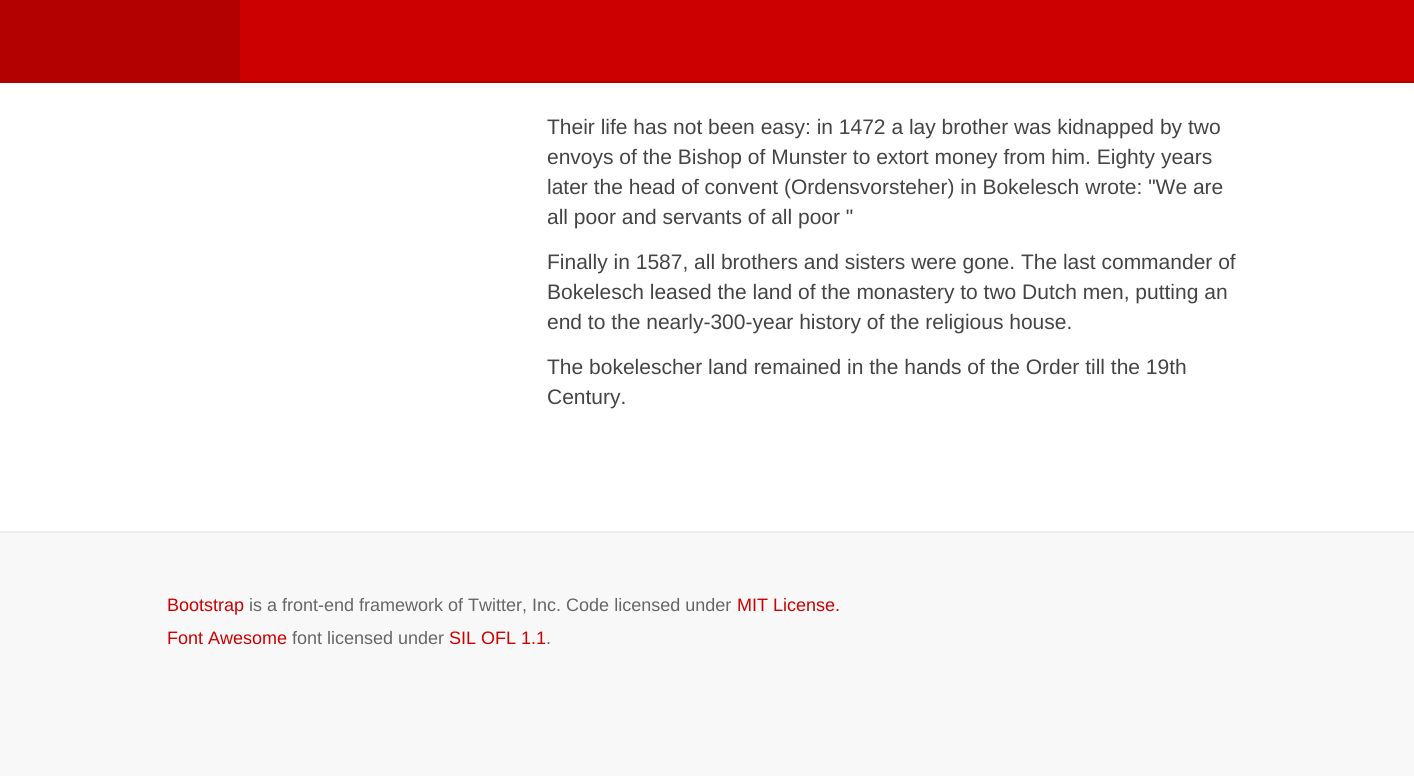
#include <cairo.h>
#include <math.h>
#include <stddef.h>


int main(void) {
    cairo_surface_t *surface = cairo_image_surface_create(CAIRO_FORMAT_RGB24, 1414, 776);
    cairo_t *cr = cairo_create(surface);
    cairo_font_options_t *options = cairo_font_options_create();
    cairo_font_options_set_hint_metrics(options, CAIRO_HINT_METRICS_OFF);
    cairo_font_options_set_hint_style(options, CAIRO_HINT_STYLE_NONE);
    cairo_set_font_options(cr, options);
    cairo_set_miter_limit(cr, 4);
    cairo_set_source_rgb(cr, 1, 1, 1);
    cairo_paint(cr);
    cairo_set_source_rgb(cr, 0.8, 0, 0);
    cairo_rectangle(cr, 240, 0, 1174, 81);
    cairo_fill(cr);
    cairo_set_source_rgb(cr, 0.702, 0, 0);
    cairo_rectangle(cr, 240, 81, 1174, 2);
    cairo_fill(cr);
    cairo_rectangle(cr, 0, 0, 240, 83);
    cairo_fill(cr);
    cairo_select_font_face(cr, "Liberation Sans", CAIRO_FONT_SLANT_NORMAL, CAIRO_FONT_WEIGHT_NORMAL);
    cairo_set_font_size(cr, 21);
    cairo_set_source_rgb(cr, 0.267, 0.267, 0.267);
    cairo_move_to(cr, 547, 134);
    cairo_show_text(cr, "Their life has not been easy: in 1472 a lay brother was kidnapped by two");
    cairo_move_to(cr, 547, 164);
    cairo_show_text(cr, "envoys of the Bishop of Munster to extort money from him. Eighty years");
    cairo_move_to(cr, 547, 194);
    cairo_show_text(cr, "later the head of convent (Ordensvorsteher) in Bokelesch wrote: \"We are");
    cairo_move_to(cr, 547, 224);
    cairo_show_text(cr, "all poor and servants of all poor \"");
    cairo_move_to(cr, 547, 269);
    cairo_show_text(cr, "Finally in 1587, all brothers and sisters were gone. The last commander of");
    cairo_move_to(cr, 547, 299);
    cairo_show_text(cr, "Bokelesch leased the land of the monastery to two Dutch men, putting an");
    cairo_move_to(cr, 547, 329);
    cairo_show_text(cr, "end to the nearly-300-year history of the religious house.");
    cairo_move_to(cr, 547, 374);
    cairo_show_text(cr, "The bokelescher land remained in the hands of the Order till the 19th");
    cairo_move_to(cr, 547, 404);
    cairo_show_text(cr, "Century.");
    cairo_set_source_rgb(cr, 0.969, 0.969, 0.969);
    cairo_rectangle(cr, 0, 533, 1414, 243);
    cairo_fill(cr);
    cairo_set_source_rgb(cr, 0.933, 0.933, 0.933);
    cairo_rectangle(cr, 0, 531, 1414, 2);
    cairo_fill(cr);
    cairo_set_font_size(cr, 18);
    cairo_set_source_rgb(cr, 0.8, 0, 0);
    cairo_move_to(cr, 167, 611);
    cairo_show_text(cr, "Bootstrap");
    cairo_set_source_rgb(cr, 0.4, 0.4, 0.4);
    cairo_move_to(cr, 249, 611);
    cairo_show_text(cr, "is a front-end framework of Twitter, Inc. Code licensed under");
    cairo_set_source_rgb(cr, 0.8, 0, 0);
    cairo_move_to(cr, 737, 611);
    cairo_show_text(cr, "MIT License.");
    cairo_move_to(cr, 167, 644);
    cairo_show_text(cr, "Font Awesome");
    cairo_set_source_rgb(cr, 0.4, 0.4, 0.4);
    cairo_move_to(cr, 292, 644);
    cairo_show_text(cr, "font licensed under");
    cairo_set_source_rgb(cr, 0.8, 0, 0);
    cairo_move_to(cr, 449, 644);
    cairo_show_text(cr, "SIL OFL 1.1");
    cairo_set_source_rgb(cr, 0.4, 0.4, 0.4);
    cairo_move_to(cr, 546, 644);
    cairo_show_text(cr, ".");
    cairo_surface_write_to_png(surface, "page.png");
    cairo_font_options_destroy(options);
    cairo_destroy(cr);
    cairo_surface_destroy(surface);
    return 0;
}
